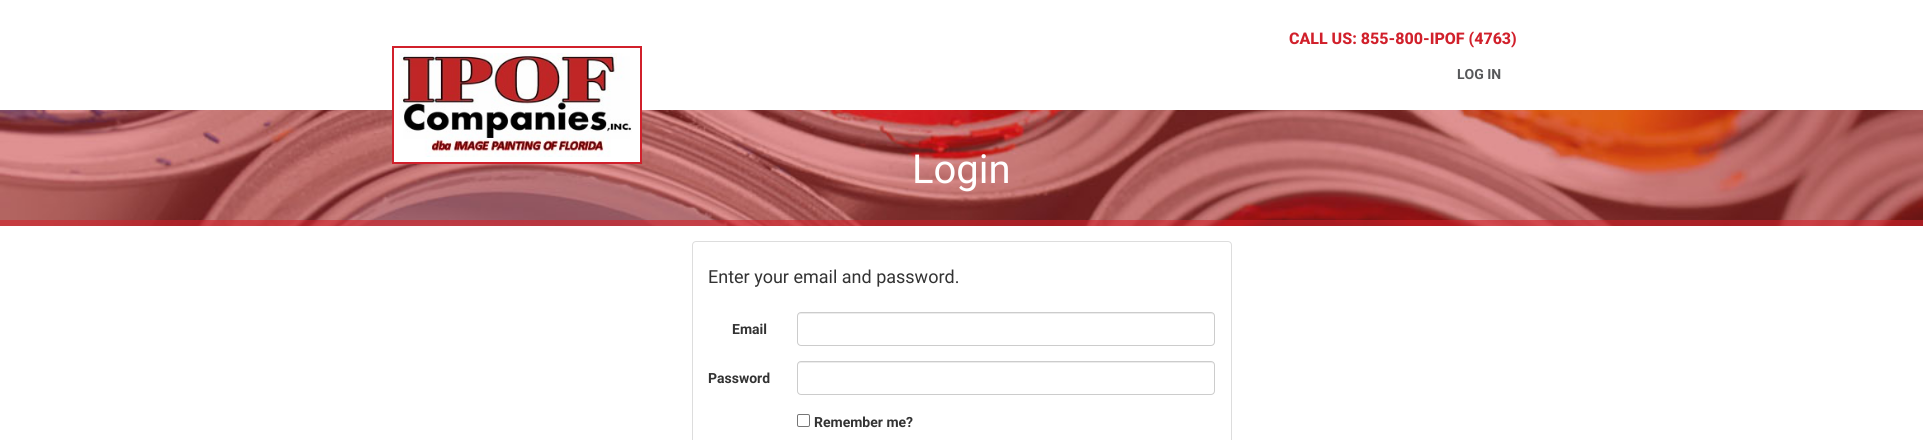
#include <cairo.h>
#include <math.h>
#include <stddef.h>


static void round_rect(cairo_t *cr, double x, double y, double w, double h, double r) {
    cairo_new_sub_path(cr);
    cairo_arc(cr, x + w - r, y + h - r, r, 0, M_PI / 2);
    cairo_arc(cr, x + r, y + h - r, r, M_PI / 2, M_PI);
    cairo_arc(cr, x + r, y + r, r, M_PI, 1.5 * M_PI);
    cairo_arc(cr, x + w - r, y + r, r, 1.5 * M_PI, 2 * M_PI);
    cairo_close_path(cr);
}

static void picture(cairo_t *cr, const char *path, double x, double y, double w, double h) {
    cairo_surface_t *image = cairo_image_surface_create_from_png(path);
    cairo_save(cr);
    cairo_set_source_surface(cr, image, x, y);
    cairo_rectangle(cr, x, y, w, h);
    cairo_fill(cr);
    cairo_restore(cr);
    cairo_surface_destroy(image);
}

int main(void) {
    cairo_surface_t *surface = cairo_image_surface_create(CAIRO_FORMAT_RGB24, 1923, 440);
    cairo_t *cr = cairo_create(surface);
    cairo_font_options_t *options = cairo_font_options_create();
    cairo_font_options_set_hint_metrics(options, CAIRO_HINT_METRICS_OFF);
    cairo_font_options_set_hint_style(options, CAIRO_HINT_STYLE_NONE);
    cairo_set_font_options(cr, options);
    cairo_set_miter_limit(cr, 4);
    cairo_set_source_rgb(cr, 1, 1, 1);
    cairo_paint(cr);
    picture(cr, "img2.png", 0, 110, 1923, 116);
    cairo_set_source_rgb(cr, 1, 1, 1);
    cairo_rectangle(cr, 394, 110, 246, 52);
    cairo_fill(cr);
    cairo_rectangle(cr, 393, 47, 248, 116);
    cairo_set_source_rgb(cr, 0.82, 0.125, 0.169);
    cairo_stroke(cr);
    picture(cr, "img1.png", 399, 53, 233, 104);
    cairo_select_font_face(cr, "Roboto ExtraBold", CAIRO_FONT_SLANT_NORMAL, CAIRO_FONT_WEIGHT_NORMAL);
    cairo_set_font_size(cr, 16);
    cairo_move_to(cr, 1289, 44);
    cairo_show_text(cr, "CALL US: 855-800-IPOF (4763)");
    cairo_select_font_face(cr, "Roboto", CAIRO_FONT_SLANT_NORMAL, CAIRO_FONT_WEIGHT_BOLD);
    cairo_set_font_size(cr, 14);
    cairo_set_source_rgb(cr, 0.341, 0.345, 0.353);
    cairo_move_to(cr, 1457, 79);
    cairo_show_text(cr, "LOG IN");
    cairo_set_source_rgba(cr, 0.82, 0.125, 0.169, 0.6);
    cairo_rectangle(cr, 0, 220, 1923, 6);
    cairo_fill(cr);
    cairo_select_font_face(cr, "Roboto", CAIRO_FONT_SLANT_NORMAL, CAIRO_FONT_WEIGHT_NORMAL);
    cairo_set_font_size(cr, 40);
    cairo_set_source_rgb(cr, 1, 1, 1);
    cairo_move_to(cr, 912, 183);
    cairo_show_text(cr, "Login");
    round_rect(cr, 692.5, 241.5, 539, 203, 3.5);
    cairo_set_source_rgb(cr, 0.867, 0.867, 0.867);
    cairo_set_line_width(cr, 1);
    cairo_stroke(cr);
    cairo_set_font_size(cr, 18);
    cairo_set_source_rgb(cr, 0.2, 0.2, 0.2);
    cairo_move_to(cr, 708, 283);
    cairo_show_text(cr, "Enter your email and password.");
    cairo_select_font_face(cr, "Roboto", CAIRO_FONT_SLANT_NORMAL, CAIRO_FONT_WEIGHT_BOLD);
    cairo_set_font_size(cr, 14);
    cairo_move_to(cr, 732, 334);
    cairo_show_text(cr, "Email");
    cairo_set_source_rgb(cr, 0.925, 0.925, 0.925);
    cairo_new_path(cr);
    cairo_move_to(cr, 801, 314);
    cairo_line_to(cr, 1211, 314);
    cairo_curve_to(cr, 1213, 314, 1214, 315, 1214, 317);
    cairo_curve_to(cr, 1214, 315, 1213, 313, 1211, 313);
    cairo_line_to(cr, 801, 313);
    cairo_curve_to(cr, 799, 313, 798, 315, 798, 317);
    cairo_curve_to(cr, 798, 315, 799, 314, 801, 314);
    cairo_close_path(cr);
    cairo_fill(cr);
    round_rect(cr, 797.5, 312.5, 417, 33, 3.5);
    cairo_set_source_rgb(cr, 0.8, 0.8, 0.8);
    cairo_stroke(cr);
    cairo_set_source_rgb(cr, 0.2, 0.2, 0.2);
    cairo_move_to(cr, 708, 383);
    cairo_show_text(cr, "Password");
    cairo_set_source_rgb(cr, 0.925, 0.925, 0.925);
    cairo_new_path(cr);
    cairo_move_to(cr, 801, 363);
    cairo_line_to(cr, 1211, 363);
    cairo_curve_to(cr, 1213, 363, 1214, 364, 1214, 366);
    cairo_curve_to(cr, 1214, 364, 1213, 362, 1211, 362);
    cairo_line_to(cr, 801, 362);
    cairo_curve_to(cr, 799, 362, 798, 364, 798, 366);
    cairo_curve_to(cr, 798, 364, 799, 363, 801, 363);
    cairo_close_path(cr);
    cairo_fill(cr);
    round_rect(cr, 797.5, 361.5, 417, 33, 3.5);
    cairo_set_source_rgb(cr, 0.8, 0.8, 0.8);
    cairo_stroke(cr);
    round_rect(cr, 797.5, 414.5, 12, 12, 1.5);
    cairo_set_source_rgb(cr, 0.463, 0.463, 0.463);
    cairo_stroke(cr);
    cairo_set_source_rgb(cr, 0.2, 0.2, 0.2);
    cairo_move_to(cr, 814, 427);
    cairo_show_text(cr, "Remember me?");
    cairo_surface_write_to_png(surface, "page.png");
    cairo_font_options_destroy(options);
    cairo_destroy(cr);
    cairo_surface_destroy(surface);
    return 0;
}
